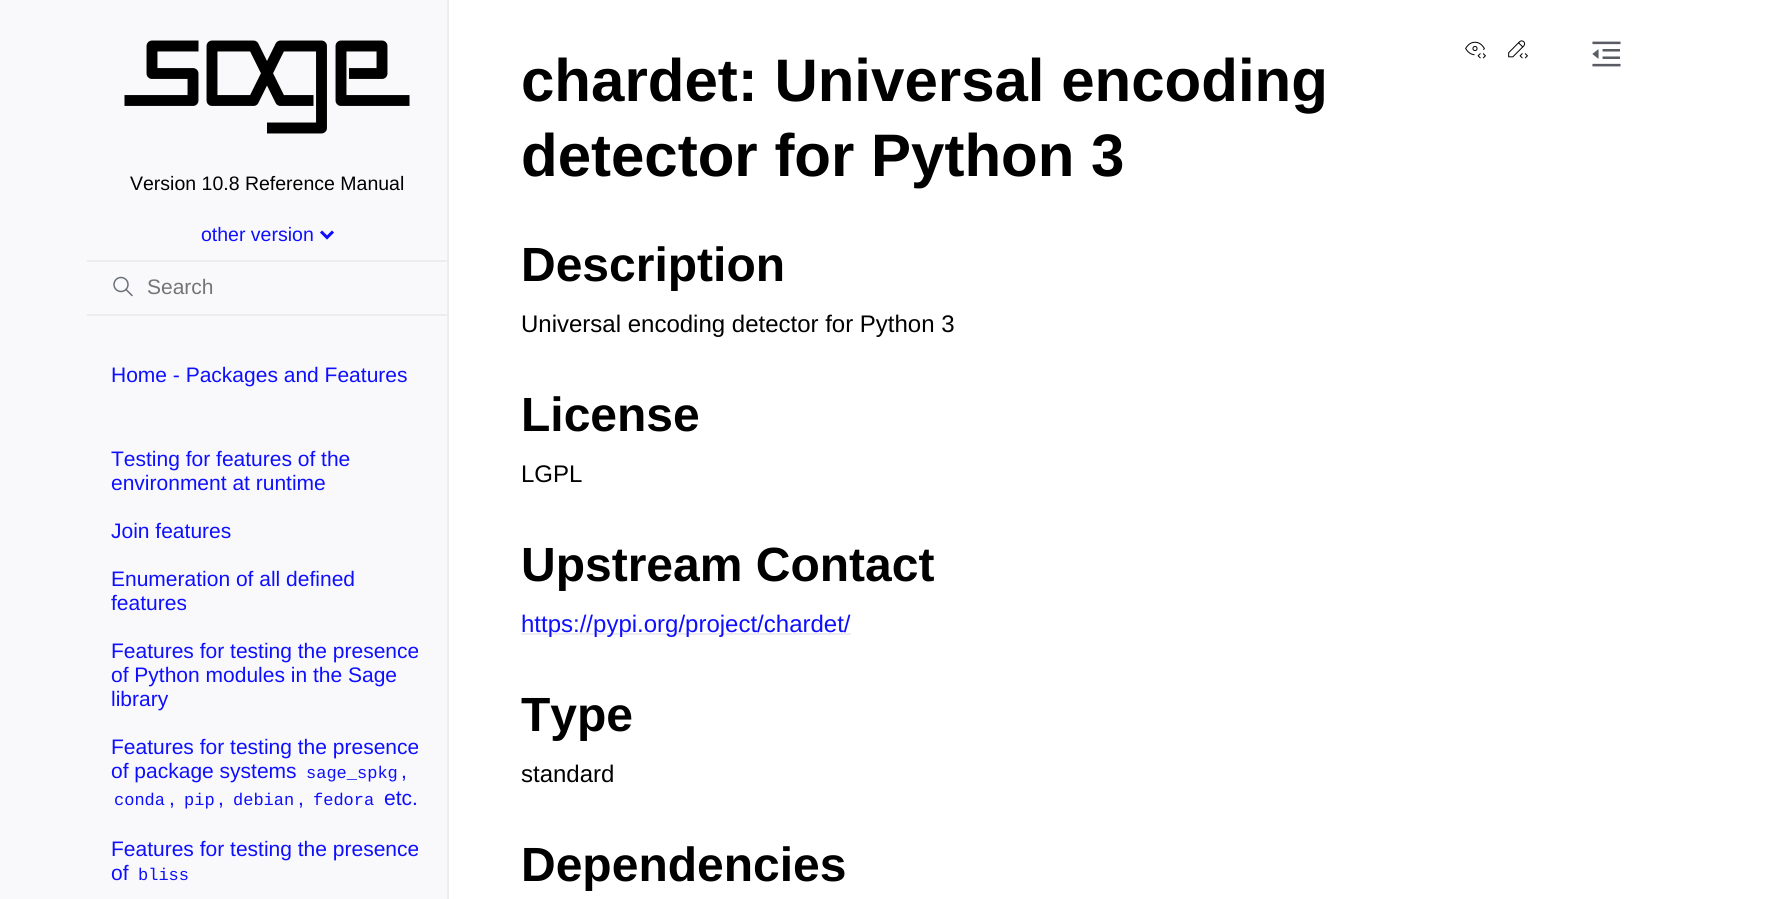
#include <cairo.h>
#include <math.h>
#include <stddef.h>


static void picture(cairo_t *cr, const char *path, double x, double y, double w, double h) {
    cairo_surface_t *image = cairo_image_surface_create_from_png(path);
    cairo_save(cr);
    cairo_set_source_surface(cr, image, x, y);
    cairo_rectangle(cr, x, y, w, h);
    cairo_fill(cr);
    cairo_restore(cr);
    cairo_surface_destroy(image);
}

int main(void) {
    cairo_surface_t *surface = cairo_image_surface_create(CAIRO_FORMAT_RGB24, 1785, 899);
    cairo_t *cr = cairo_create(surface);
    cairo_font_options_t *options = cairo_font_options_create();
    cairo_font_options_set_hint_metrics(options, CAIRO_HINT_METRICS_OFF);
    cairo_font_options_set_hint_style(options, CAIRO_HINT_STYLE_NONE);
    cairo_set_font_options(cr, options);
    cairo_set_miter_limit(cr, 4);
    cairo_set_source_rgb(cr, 1, 1, 1);
    cairo_paint(cr);
    cairo_set_source_rgb(cr, 0.973, 0.976, 0.984);
    cairo_rectangle(cr, 0, 0, 447, 899);
    cairo_fill(cr);
    cairo_set_source_rgb(cr, 0.933, 0.922, 0.933);
    cairo_rectangle(cr, 447, 0, 2, 899);
    cairo_fill(cr);
    cairo_new_path(cr);
    cairo_move_to(cr, 198.5, 46);
    cairo_line_to(cr, 152, 46);
    cairo_line_to(cr, 152, 73.5);
    cairo_line_to(cr, 193, 73.5);
    cairo_line_to(cr, 193, 100.5);
    cairo_line_to(cr, 124.5, 100.5);
    cairo_set_source_rgb(cr, 0, 0, 0);
    cairo_set_line_width(cr, 10.9);
    cairo_set_line_join(cr, CAIRO_LINE_JOIN_ROUND);
    cairo_stroke(cr);
    cairo_new_path(cr);
    cairo_move_to(cr, 313.5, 100.5);
    cairo_line_to(cr, 280.5, 100.5);
    cairo_line_to(cr, 253.5, 46);
    cairo_line_to(cr, 212, 46);
    cairo_line_to(cr, 212, 100.5);
    cairo_line_to(cr, 253.5, 100.5);
    cairo_line_to(cr, 280.5, 46);
    cairo_line_to(cr, 321.5, 46);
    cairo_line_to(cr, 321.5, 128);
    cairo_line_to(cr, 267, 128);
    cairo_stroke(cr);
    cairo_new_path(cr);
    cairo_move_to(cr, 409.5, 100.5);
    cairo_line_to(cr, 341, 100.5);
    cairo_line_to(cr, 341, 46);
    cairo_line_to(cr, 382, 46);
    cairo_line_to(cr, 382, 73.5);
    cairo_line_to(cr, 349, 73.5);
    cairo_stroke(cr);
    cairo_select_font_face(cr, "Liberation Sans", CAIRO_FONT_SLANT_NORMAL, CAIRO_FONT_WEIGHT_NORMAL);
    cairo_set_font_size(cr, 19.5);
    cairo_move_to(cr, 130, 190);
    cairo_show_text(cr, "Version 10.8 Reference Manual");
    cairo_new_path(cr);
    cairo_move_to(cr, 321, 231.5);
    cairo_line_to(cr, 327, 237.5);
    cairo_line_to(cr, 333, 231.5);
    cairo_set_source_rgb(cr, 0.059, 0.059, 1);
    cairo_set_line_width(cr, 3);
    cairo_set_line_join(cr, CAIRO_LINE_JOIN_MITER);
    cairo_stroke(cr);
    cairo_move_to(cr, 201, 241);
    cairo_show_text(cr, "other version");
    cairo_new_path(cr);
    cairo_arc(cr, 121, 284.5, 7, 0, 2 * M_PI);
    cairo_set_source_rgb(cr, 0.42, 0.435, 0.463);
    cairo_set_line_width(cr, 1.5);
    cairo_stroke(cr);
    cairo_new_path(cr);
    cairo_move_to(cr, 132, 295.5);
    cairo_line_to(cr, 126, 289.5);
    cairo_set_line_cap(cr, CAIRO_LINE_CAP_ROUND);
    cairo_set_line_join(cr, CAIRO_LINE_JOIN_ROUND);
    cairo_stroke(cr);
    cairo_set_source_rgb(cr, 0.933, 0.922, 0.933);
    cairo_rectangle(cr, 87, 260, 360, 2);
    cairo_fill(cr);
    cairo_rectangle(cr, 87, 314, 360, 2);
    cairo_fill(cr);
    cairo_set_font_size(cr, 21);
    cairo_set_source_rgb(cr, 0.459, 0.459, 0.459);
    cairo_move_to(cr, 147, 294);
    cairo_show_text(cr, "Search");
    cairo_set_source_rgb(cr, 0.059, 0.059, 1);
    cairo_move_to(cr, 111, 382);
    cairo_show_text(cr, "Home - Packages and Features");
    cairo_move_to(cr, 111, 466);
    cairo_show_text(cr, "Testing for features of the");
    cairo_move_to(cr, 111, 490);
    cairo_show_text(cr, "environment at runtime");
    cairo_move_to(cr, 111, 538);
    cairo_show_text(cr, "Join features");
    cairo_move_to(cr, 111, 586);
    cairo_show_text(cr, "Enumeration of all defined");
    cairo_move_to(cr, 111, 610);
    cairo_show_text(cr, "features");
    cairo_move_to(cr, 111, 658);
    cairo_show_text(cr, "Features for testing the presence");
    cairo_move_to(cr, 111, 682);
    cairo_show_text(cr, "of Python modules in the Sage");
    cairo_move_to(cr, 111, 706);
    cairo_show_text(cr, "library");
    cairo_move_to(cr, 111, 754);
    cairo_show_text(cr, "Features for testing the presence");
    cairo_move_to(cr, 111, 778);
    cairo_show_text(cr, "of package systems");
    cairo_select_font_face(cr, "Liberation Mono", CAIRO_FONT_SLANT_NORMAL, CAIRO_FONT_WEIGHT_NORMAL);
    cairo_set_font_size(cr, 17);
    cairo_move_to(cr, 306, 778);
    cairo_show_text(cr, "sage_spkg");
    cairo_select_font_face(cr, "Liberation Sans", CAIRO_FONT_SLANT_NORMAL, CAIRO_FONT_WEIGHT_NORMAL);
    cairo_set_font_size(cr, 21);
    cairo_move_to(cr, 401, 778);
    cairo_show_text(cr, ",");
    cairo_select_font_face(cr, "Liberation Mono", CAIRO_FONT_SLANT_NORMAL, CAIRO_FONT_WEIGHT_NORMAL);
    cairo_set_font_size(cr, 17);
    cairo_move_to(cr, 114, 805);
    cairo_show_text(cr, "conda");
    cairo_select_font_face(cr, "Liberation Sans", CAIRO_FONT_SLANT_NORMAL, CAIRO_FONT_WEIGHT_NORMAL);
    cairo_set_font_size(cr, 21);
    cairo_move_to(cr, 169, 805);
    cairo_show_text(cr, ",");
    cairo_select_font_face(cr, "Liberation Mono", CAIRO_FONT_SLANT_NORMAL, CAIRO_FONT_WEIGHT_NORMAL);
    cairo_set_font_size(cr, 17);
    cairo_move_to(cr, 184, 805);
    cairo_show_text(cr, "pip");
    cairo_select_font_face(cr, "Liberation Sans", CAIRO_FONT_SLANT_NORMAL, CAIRO_FONT_WEIGHT_NORMAL);
    cairo_set_font_size(cr, 21);
    cairo_move_to(cr, 218, 805);
    cairo_show_text(cr, ",");
    cairo_select_font_face(cr, "Liberation Mono", CAIRO_FONT_SLANT_NORMAL, CAIRO_FONT_WEIGHT_NORMAL);
    cairo_set_font_size(cr, 17);
    cairo_move_to(cr, 233, 805);
    cairo_show_text(cr, "debian");
    cairo_select_font_face(cr, "Liberation Sans", CAIRO_FONT_SLANT_NORMAL, CAIRO_FONT_WEIGHT_NORMAL);
    cairo_set_font_size(cr, 21);
    cairo_move_to(cr, 298, 805);
    cairo_show_text(cr, ",");
    cairo_select_font_face(cr, "Liberation Mono", CAIRO_FONT_SLANT_NORMAL, CAIRO_FONT_WEIGHT_NORMAL);
    cairo_set_font_size(cr, 17);
    cairo_move_to(cr, 313, 805);
    cairo_show_text(cr, "fedora");
    cairo_select_font_face(cr, "Liberation Sans", CAIRO_FONT_SLANT_NORMAL, CAIRO_FONT_WEIGHT_NORMAL);
    cairo_set_font_size(cr, 21);
    cairo_move_to(cr, 384, 805);
    cairo_show_text(cr, "etc.");
    cairo_move_to(cr, 111, 856);
    cairo_show_text(cr, "Features for testing the presence");
    cairo_move_to(cr, 111, 880);
    cairo_show_text(cr, "of");
    cairo_select_font_face(cr, "Liberation Mono", CAIRO_FONT_SLANT_NORMAL, CAIRO_FONT_WEIGHT_NORMAL);
    cairo_set_font_size(cr, 17);
    cairo_move_to(cr, 138, 880);
    cairo_show_text(cr, "bliss");
    picture(cr, "img1.png", 1465, 41, 21, 18);
    picture(cr, "img2.png", 1508, 40, 20, 19);
    picture(cr, "img3.png", 1592, 41, 29, 26);
    cairo_select_font_face(cr, "Liberation Sans", CAIRO_FONT_SLANT_NORMAL, CAIRO_FONT_WEIGHT_BOLD);
    cairo_set_font_size(cr, 60);
    cairo_set_source_rgb(cr, 0, 0, 0);
    cairo_move_to(cr, 521, 101);
    cairo_show_text(cr, "chardet: Universal encoding");
    cairo_move_to(cr, 521, 176);
    cairo_show_text(cr, "detector for Python 3");
    cairo_set_font_size(cr, 48);
    cairo_move_to(cr, 521, 281);
    cairo_show_text(cr, "Description");
    cairo_select_font_face(cr, "Liberation Sans", CAIRO_FONT_SLANT_NORMAL, CAIRO_FONT_WEIGHT_NORMAL);
    cairo_set_font_size(cr, 24);
    cairo_move_to(cr, 521, 332);
    cairo_show_text(cr, "Universal encoding detector for Python 3");
    cairo_select_font_face(cr, "Liberation Sans", CAIRO_FONT_SLANT_NORMAL, CAIRO_FONT_WEIGHT_BOLD);
    cairo_set_font_size(cr, 48);
    cairo_move_to(cr, 521, 431);
    cairo_show_text(cr, "License");
    cairo_select_font_face(cr, "Liberation Sans", CAIRO_FONT_SLANT_NORMAL, CAIRO_FONT_WEIGHT_NORMAL);
    cairo_set_font_size(cr, 24);
    cairo_move_to(cr, 521, 482);
    cairo_show_text(cr, "LGPL");
    cairo_select_font_face(cr, "Liberation Sans", CAIRO_FONT_SLANT_NORMAL, CAIRO_FONT_WEIGHT_BOLD);
    cairo_set_font_size(cr, 48);
    cairo_move_to(cr, 521, 581);
    cairo_show_text(cr, "Upstream Contact");
    cairo_set_source_rgb(cr, 0.933, 0.922, 0.933);
    cairo_rectangle(cr, 521, 633, 330, 2);
    cairo_fill(cr);
    cairo_select_font_face(cr, "Liberation Sans", CAIRO_FONT_SLANT_NORMAL, CAIRO_FONT_WEIGHT_NORMAL);
    cairo_set_font_size(cr, 24);
    cairo_set_source_rgb(cr, 0.059, 0.059, 1);
    cairo_move_to(cr, 521, 632);
    cairo_show_text(cr, "https://pypi.org/project/chardet/");
    cairo_select_font_face(cr, "Liberation Sans", CAIRO_FONT_SLANT_NORMAL, CAIRO_FONT_WEIGHT_BOLD);
    cairo_set_font_size(cr, 48);
    cairo_set_source_rgb(cr, 0, 0, 0);
    cairo_move_to(cr, 521, 731);
    cairo_show_text(cr, "Type");
    cairo_select_font_face(cr, "Liberation Sans", CAIRO_FONT_SLANT_NORMAL, CAIRO_FONT_WEIGHT_NORMAL);
    cairo_set_font_size(cr, 24);
    cairo_move_to(cr, 521, 782);
    cairo_show_text(cr, "standard");
    cairo_select_font_face(cr, "Liberation Sans", CAIRO_FONT_SLANT_NORMAL, CAIRO_FONT_WEIGHT_BOLD);
    cairo_set_font_size(cr, 48);
    cairo_move_to(cr, 521, 881);
    cairo_show_text(cr, "Dependencies");
    cairo_surface_write_to_png(surface, "page.png");
    cairo_font_options_destroy(options);
    cairo_destroy(cr);
    cairo_surface_destroy(surface);
    return 0;
}
